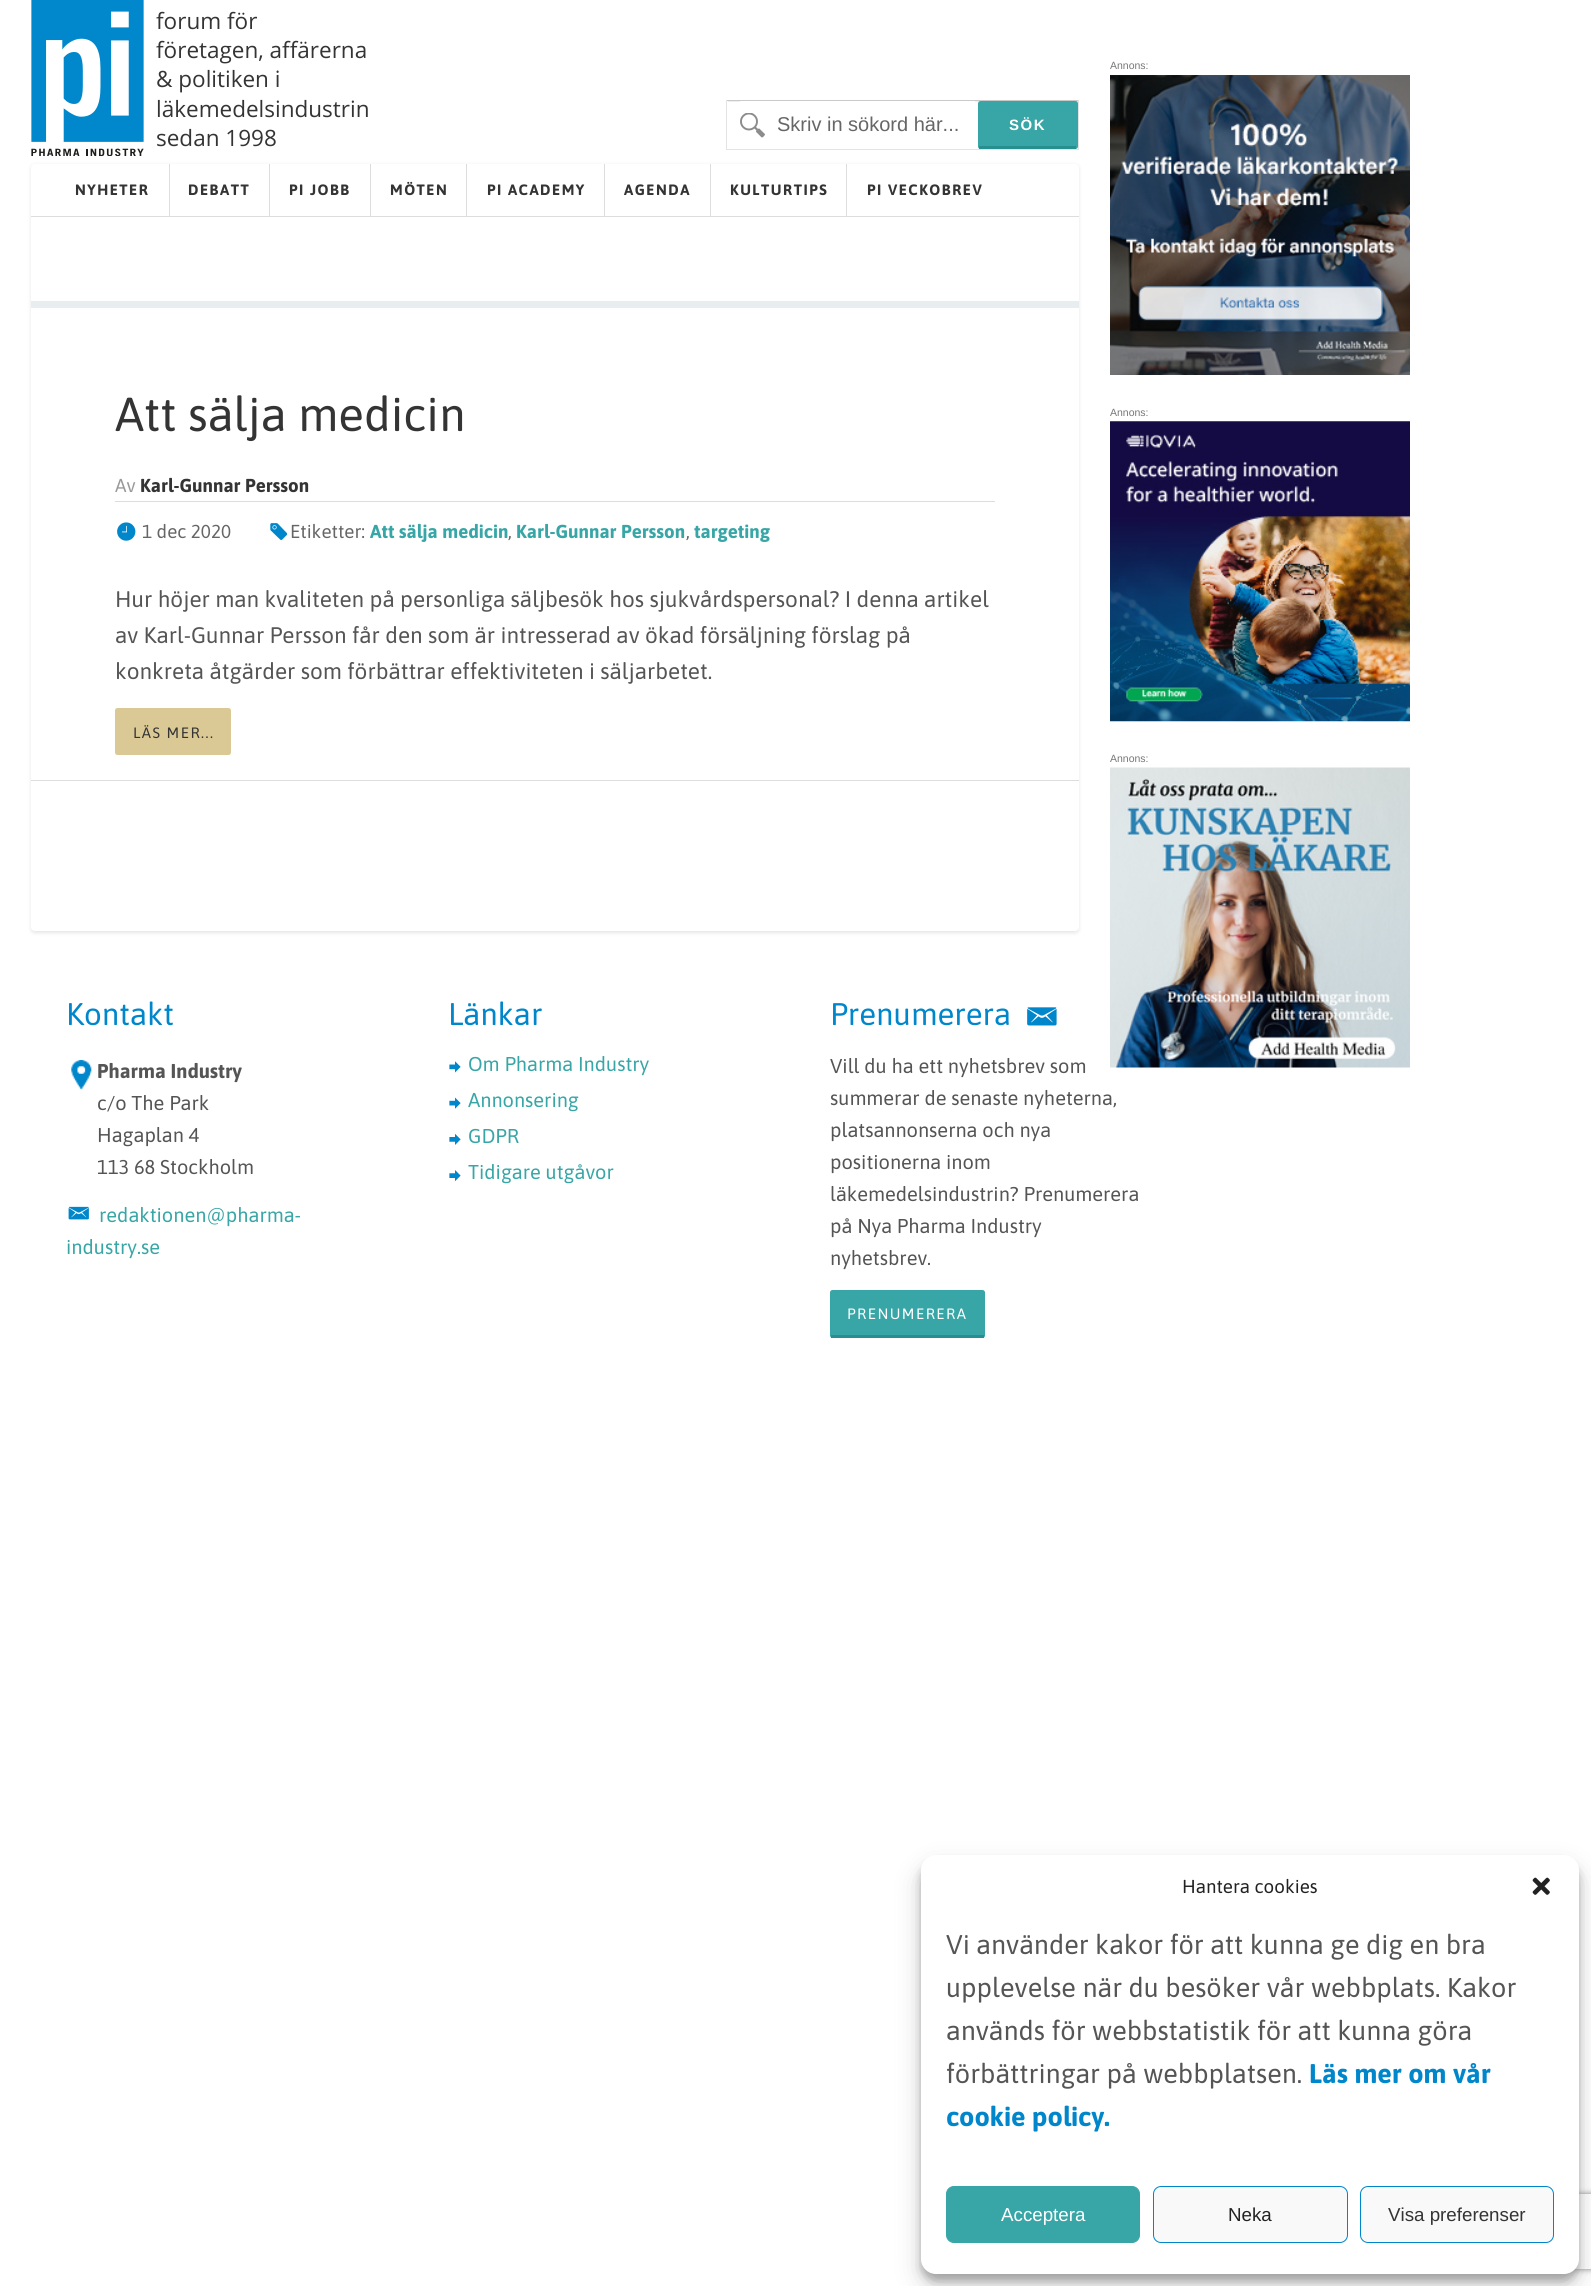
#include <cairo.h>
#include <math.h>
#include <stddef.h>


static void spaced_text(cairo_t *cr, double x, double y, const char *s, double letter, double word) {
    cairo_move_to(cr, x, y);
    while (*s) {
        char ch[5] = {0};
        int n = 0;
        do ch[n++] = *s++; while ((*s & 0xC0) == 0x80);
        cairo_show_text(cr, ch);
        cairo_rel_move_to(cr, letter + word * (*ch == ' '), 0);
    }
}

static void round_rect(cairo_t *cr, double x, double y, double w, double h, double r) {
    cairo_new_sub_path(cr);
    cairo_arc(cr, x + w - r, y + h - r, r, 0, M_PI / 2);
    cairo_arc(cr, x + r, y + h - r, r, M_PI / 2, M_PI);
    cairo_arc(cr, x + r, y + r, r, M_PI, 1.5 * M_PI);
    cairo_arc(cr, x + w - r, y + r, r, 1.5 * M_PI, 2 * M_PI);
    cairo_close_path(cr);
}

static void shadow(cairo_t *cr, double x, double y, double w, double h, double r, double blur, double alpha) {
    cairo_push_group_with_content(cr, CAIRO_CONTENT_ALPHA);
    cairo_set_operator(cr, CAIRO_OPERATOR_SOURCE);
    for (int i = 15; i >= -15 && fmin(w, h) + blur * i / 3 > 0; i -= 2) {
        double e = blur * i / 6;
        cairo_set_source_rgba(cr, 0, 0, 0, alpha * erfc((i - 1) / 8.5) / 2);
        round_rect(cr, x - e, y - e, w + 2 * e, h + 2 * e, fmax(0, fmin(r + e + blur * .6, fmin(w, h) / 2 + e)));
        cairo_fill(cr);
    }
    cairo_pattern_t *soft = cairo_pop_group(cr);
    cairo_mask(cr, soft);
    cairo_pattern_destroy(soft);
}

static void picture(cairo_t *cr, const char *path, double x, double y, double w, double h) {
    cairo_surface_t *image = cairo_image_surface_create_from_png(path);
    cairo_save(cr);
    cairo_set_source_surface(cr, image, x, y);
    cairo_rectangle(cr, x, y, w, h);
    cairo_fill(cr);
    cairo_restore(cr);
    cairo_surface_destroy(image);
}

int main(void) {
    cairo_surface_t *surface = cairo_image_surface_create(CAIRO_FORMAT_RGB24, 1591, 2286);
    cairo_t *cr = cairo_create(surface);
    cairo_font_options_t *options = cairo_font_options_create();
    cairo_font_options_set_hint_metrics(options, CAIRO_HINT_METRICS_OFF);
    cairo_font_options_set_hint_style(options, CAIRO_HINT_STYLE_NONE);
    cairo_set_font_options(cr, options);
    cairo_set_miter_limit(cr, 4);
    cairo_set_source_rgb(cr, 1, 1, 1);
    cairo_paint(cr);
    picture(cr, "img1.png", 31, 0, 113, 156);
    cairo_select_font_face(cr, "Open Sans", CAIRO_FONT_SLANT_NORMAL, CAIRO_FONT_WEIGHT_NORMAL);
    cairo_set_font_size(cr, 22.5);
    cairo_set_source_rgb(cr, 0.204, 0.204, 0.204);
    cairo_move_to(cr, 156, 29);
    cairo_show_text(cr, "forum för");
    cairo_move_to(cr, 156, 58);
    cairo_show_text(cr, "företagen, affärerna");
    cairo_move_to(cr, 156, 87);
    cairo_show_text(cr, "& politiken i");
    cairo_move_to(cr, 156, 117);
    cairo_show_text(cr, "läkemedelsindustrin");
    cairo_move_to(cr, 156, 146);
    cairo_show_text(cr, "sedan 1998");
    cairo_set_source_rgb(cr, 0.933, 0.933, 0.933);
    cairo_rectangle(cr, 728, 101, 350, 1);
    cairo_fill(cr);
    cairo_set_source_rgb(cr, 0.784, 0.788, 0.784);
    cairo_rectangle(cr, 726, 100, 353, 1);
    cairo_fill(cr);
    cairo_set_source_rgb(cr, 0.89, 0.89, 0.89);
    cairo_rectangle(cr, 1078, 100, 1, 50);
    cairo_fill(cr);
    cairo_rectangle(cr, 726, 149, 353, 1);
    cairo_fill(cr);
    cairo_rectangle(cr, 726, 100, 1, 50);
    cairo_fill(cr);
    cairo_set_source_rgb(cr, 1, 1, 1);
    cairo_rectangle(cr, 740, 101, 235, 1);
    cairo_fill(cr);
    picture(cr, "img2.png", 740, 113, 25, 25);
    cairo_select_font_face(cr, "Liberation Sans", CAIRO_FONT_SLANT_NORMAL, CAIRO_FONT_WEIGHT_NORMAL);
    cairo_set_font_size(cr, 20);
    cairo_set_source_rgb(cr, 0.4, 0.4, 0.4);
    cairo_move_to(cr, 777, 131);
    cairo_show_text(cr, "Skriv in sökord här...");
    cairo_set_source_rgb(cr, 0.22, 0.651, 0.651);
    round_rect(cr, 978, 101, 100, 48, 2.5);
    cairo_fill(cr);
    cairo_set_source_rgb(cr, 0.153, 0.561, 0.561);
    cairo_rectangle(cr, 979, 146, 97, 3);
    cairo_fill(cr);
    cairo_select_font_face(cr, "Liberation Sans", CAIRO_FONT_SLANT_NORMAL, CAIRO_FONT_WEIGHT_BOLD);
    cairo_set_font_size(cr, 15);
    cairo_set_source_rgb(cr, 1, 1, 1);
    spaced_text(cr, 1009, 130, "SÖK", 1.5, 0);
    cairo_set_source_rgb(cr, 0, 0, 0);
    shadow(cr, 31, 165, 1048, 768, 4, 2, 0.1);
    cairo_set_source_rgb(cr, 1, 1, 1);
    round_rect(cr, 31, 164, 1048, 767, 4);
    cairo_fill(cr);
    cairo_set_source_rgb(cr, 0.867, 0.867, 0.867);
    cairo_rectangle(cr, 31, 216, 1048, 1);
    cairo_fill(cr);
    cairo_select_font_face(cr, "Asap", CAIRO_FONT_SLANT_NORMAL, CAIRO_FONT_WEIGHT_BOLD);
    cairo_set_source_rgb(cr, 0.204, 0.204, 0.204);
    spaced_text(cr, 75, 195, "NYHETER", 1.5, 0);
    cairo_set_source_rgb(cr, 0.867, 0.867, 0.867);
    cairo_rectangle(cr, 169, 164, 1, 52);
    cairo_fill(cr);
    cairo_set_source_rgb(cr, 0.204, 0.204, 0.204);
    spaced_text(cr, 188, 195, "DEBATT", 1.5, 0);
    cairo_set_source_rgb(cr, 0.867, 0.867, 0.867);
    cairo_rectangle(cr, 269, 164, 1, 52);
    cairo_fill(cr);
    cairo_set_source_rgb(cr, 0.204, 0.204, 0.204);
    spaced_text(cr, 289, 195, "PI JOBB", 1.5, 0);
    cairo_set_source_rgb(cr, 0.867, 0.867, 0.867);
    cairo_rectangle(cr, 370, 164, 1, 52);
    cairo_fill(cr);
    cairo_set_source_rgb(cr, 0.204, 0.204, 0.204);
    spaced_text(cr, 390, 195, "MÖTEN", 1.5, 0);
    cairo_set_source_rgb(cr, 0.867, 0.867, 0.867);
    cairo_rectangle(cr, 466, 164, 1, 52);
    cairo_fill(cr);
    cairo_set_source_rgb(cr, 0.204, 0.204, 0.204);
    spaced_text(cr, 487, 195, "PI ACADEMY", 1.5, 0);
    cairo_set_source_rgb(cr, 0.867, 0.867, 0.867);
    cairo_rectangle(cr, 604, 164, 1, 52);
    cairo_fill(cr);
    cairo_set_source_rgb(cr, 0.204, 0.204, 0.204);
    spaced_text(cr, 624, 195, "AGENDA", 1.5, 0);
    cairo_set_source_rgb(cr, 0.867, 0.867, 0.867);
    cairo_rectangle(cr, 710, 164, 1, 52);
    cairo_fill(cr);
    cairo_set_source_rgb(cr, 0.204, 0.204, 0.204);
    spaced_text(cr, 730, 195, "KULTURTIPS", 1.5, 0);
    cairo_set_source_rgb(cr, 0.867, 0.867, 0.867);
    cairo_rectangle(cr, 846, 164, 1, 52);
    cairo_fill(cr);
    cairo_set_source_rgb(cr, 0.204, 0.204, 0.204);
    spaced_text(cr, 867, 195, "PI VECKOBREV", 1.5, 0);
    cairo_set_source_rgb(cr, 0.91, 0.933, 0.937);
    cairo_rectangle(cr, 31, 301, 1048, 7);
    cairo_fill(cr);
    cairo_set_source_rgb(cr, 0.867, 0.867, 0.867);
    cairo_rectangle(cr, 31, 780, 1048, 1);
    cairo_fill(cr);
    cairo_select_font_face(cr, "Asap", CAIRO_FONT_SLANT_NORMAL, CAIRO_FONT_WEIGHT_NORMAL);
    cairo_set_font_size(cr, 47.5);
    cairo_set_source_rgb(cr, 0.204, 0.204, 0.204);
    cairo_move_to(cr, 115, 431);
    cairo_show_text(cr, "Att sälja medicin");
    cairo_set_source_rgb(cr, 0.867, 0.867, 0.867);
    cairo_rectangle(cr, 115, 501, 880, 1);
    cairo_fill(cr);
    cairo_set_font_size(cr, 18.75);
    cairo_set_source_rgb(cr, 0.6, 0.6, 0.6);
    cairo_move_to(cr, 115, 492);
    cairo_show_text(cr, "Av");
    cairo_select_font_face(cr, "Asap", CAIRO_FONT_SLANT_NORMAL, CAIRO_FONT_WEIGHT_BOLD);
    cairo_set_source_rgb(cr, 0.204, 0.204, 0.204);
    cairo_move_to(cr, 140, 492);
    cairo_show_text(cr, "Karl-Gunnar Persson");
    picture(cr, "img3.png", 117, 522, 19, 19);
    cairo_select_font_face(cr, "Asap", CAIRO_FONT_SLANT_NORMAL, CAIRO_FONT_WEIGHT_NORMAL);
    cairo_set_source_rgb(cr, 0.4, 0.4, 0.4);
    cairo_move_to(cr, 142, 538);
    cairo_show_text(cr, "1 dec 2020");
    picture(cr, "img4.png", 270, 523, 18, 17);
    cairo_move_to(cr, 290, 538);
    cairo_show_text(cr, "Etiketter:");
    cairo_select_font_face(cr, "Asap", CAIRO_FONT_SLANT_NORMAL, CAIRO_FONT_WEIGHT_BOLD);
    cairo_set_source_rgb(cr, 0.22, 0.651, 0.651);
    cairo_move_to(cr, 370, 538);
    cairo_show_text(cr, "Att sälja medicin");
    cairo_select_font_face(cr, "Asap", CAIRO_FONT_SLANT_NORMAL, CAIRO_FONT_WEIGHT_NORMAL);
    cairo_set_source_rgb(cr, 0.4, 0.4, 0.4);
    cairo_move_to(cr, 508, 538);
    cairo_show_text(cr, ",");
    cairo_select_font_face(cr, "Asap", CAIRO_FONT_SLANT_NORMAL, CAIRO_FONT_WEIGHT_BOLD);
    cairo_set_source_rgb(cr, 0.22, 0.651, 0.651);
    cairo_move_to(cr, 516, 538);
    cairo_show_text(cr, "Karl-Gunnar Persson");
    cairo_select_font_face(cr, "Asap", CAIRO_FONT_SLANT_NORMAL, CAIRO_FONT_WEIGHT_NORMAL);
    cairo_set_source_rgb(cr, 0.4, 0.4, 0.4);
    cairo_move_to(cr, 686, 538);
    cairo_show_text(cr, ",");
    cairo_select_font_face(cr, "Asap", CAIRO_FONT_SLANT_NORMAL, CAIRO_FONT_WEIGHT_BOLD);
    cairo_set_source_rgb(cr, 0.22, 0.651, 0.651);
    cairo_move_to(cr, 694, 538);
    cairo_show_text(cr, "targeting");
    cairo_select_font_face(cr, "Asap", CAIRO_FONT_SLANT_NORMAL, CAIRO_FONT_WEIGHT_NORMAL);
    cairo_set_font_size(cr, 22.5);
    cairo_set_source_rgb(cr, 0.333, 0.333, 0.333);
    cairo_move_to(cr, 115, 607);
    cairo_show_text(cr, "Hur höjer man kvaliteten på personliga säljbesök hos sjukvårdspersonal? I denna artikel");
    cairo_move_to(cr, 115, 643);
    cairo_show_text(cr, "av Karl-Gunnar Persson får den som är intresserad av ökad försäljning förslag på");
    cairo_move_to(cr, 115, 679);
    cairo_show_text(cr, "konkreta åtgärder som förbättrar effektiviteten i säljarbetet.");
    cairo_set_source_rgb(cr, 0.859, 0.788, 0.584);
    round_rect(cr, 115, 708, 116, 47, 2.5);
    cairo_fill(cr);
    cairo_set_font_size(cr, 15);
    cairo_set_source_rgb(cr, 0.204, 0.204, 0.204);
    spaced_text(cr, 133, 738, "LÄS MER...", 1.5, 0);
    cairo_select_font_face(cr, "Liberation Sans", CAIRO_FONT_SLANT_NORMAL, CAIRO_FONT_WEIGHT_NORMAL);
    cairo_set_font_size(cr, 10.5);
    cairo_set_source_rgb(cr, 0.467, 0.467, 0.467);
    cairo_move_to(cr, 1110, 69);
    cairo_show_text(cr, "Annons:");
    picture(cr, "img5.png", 1110, 75, 300, 300);
    cairo_move_to(cr, 1110, 416);
    cairo_show_text(cr, "Annons:");
    picture(cr, "img6.png", 1110, 421, 300, 301);
    cairo_move_to(cr, 1110, 762);
    cairo_show_text(cr, "Annons:");
    picture(cr, "img7.png", 1110, 767, 300, 301);
    cairo_select_font_face(cr, "Asap", CAIRO_FONT_SLANT_NORMAL, CAIRO_FONT_WEIGHT_NORMAL);
    cairo_set_font_size(cr, 31.25);
    cairo_set_source_rgb(cr, 0, 0.525, 0.796);
    cairo_move_to(cr, 66, 1025);
    cairo_show_text(cr, "Kontakt");
    picture(cr, "img8.png", 71, 1060, 21, 30);
    cairo_select_font_face(cr, "Asap", CAIRO_FONT_SLANT_NORMAL, CAIRO_FONT_WEIGHT_BOLD);
    cairo_set_font_size(cr, 20);
    cairo_set_source_rgb(cr, 0.333, 0.333, 0.333);
    cairo_move_to(cr, 97, 1078);
    cairo_show_text(cr, "Pharma Industry");
    cairo_select_font_face(cr, "Asap", CAIRO_FONT_SLANT_NORMAL, CAIRO_FONT_WEIGHT_NORMAL);
    cairo_move_to(cr, 97, 1110);
    cairo_show_text(cr, "c/o The Park");
    cairo_move_to(cr, 97, 1142);
    cairo_show_text(cr, "Hagaplan 4");
    cairo_move_to(cr, 97, 1174);
    cairo_show_text(cr, "113 68 Stockholm");
    picture(cr, "img9.png", 68, 1206, 21, 14);
    cairo_set_source_rgb(cr, 0.22, 0.651, 0.651);
    cairo_move_to(cr, 99, 1222);
    cairo_show_text(cr, "redaktionen@pharma-");
    cairo_move_to(cr, 66, 1254);
    cairo_show_text(cr, "industry.se");
    cairo_set_font_size(cr, 31.25);
    cairo_set_source_rgb(cr, 0, 0.525, 0.796);
    cairo_move_to(cr, 448, 1025);
    cairo_show_text(cr, "Länkar");
    picture(cr, "img10.png", 449, 1061, 12, 12);
    cairo_set_font_size(cr, 20);
    cairo_set_source_rgb(cr, 0.22, 0.651, 0.651);
    cairo_move_to(cr, 468, 1071);
    cairo_show_text(cr, "Om Pharma Industry");
    picture(cr, "img11.png", 449, 1097, 12, 12);
    cairo_move_to(cr, 468, 1107);
    cairo_show_text(cr, "Annonsering");
    picture(cr, "img12.png", 449, 1133, 12, 12);
    cairo_move_to(cr, 468, 1143);
    cairo_show_text(cr, "GDPR");
    picture(cr, "img13.png", 449, 1170, 12, 12);
    cairo_move_to(cr, 468, 1179);
    cairo_show_text(cr, "Tidigare utgåvor");
    cairo_set_font_size(cr, 31.25);
    cairo_set_source_rgb(cr, 0, 0.525, 0.796);
    cairo_move_to(cr, 830, 1025);
    cairo_show_text(cr, "Prenumerera");
    picture(cr, "img14.png", 1027, 1007, 30, 19);
    cairo_set_font_size(cr, 20);
    cairo_set_source_rgb(cr, 0.333, 0.333, 0.333);
    cairo_move_to(cr, 830, 1073);
    cairo_show_text(cr, "Vill du ha ett nyhetsbrev som");
    cairo_move_to(cr, 830, 1105);
    cairo_show_text(cr, "summerar de senaste nyheterna,");
    cairo_move_to(cr, 830, 1137);
    cairo_show_text(cr, "platsannonserna och nya");
    cairo_move_to(cr, 830, 1169);
    cairo_show_text(cr, "positionerna inom");
    cairo_move_to(cr, 830, 1201);
    cairo_show_text(cr, "läkemedelsindustrin? Prenumerera");
    cairo_move_to(cr, 830, 1233);
    cairo_show_text(cr, "på Nya Pharma Industry");
    cairo_move_to(cr, 830, 1265);
    cairo_show_text(cr, "nyhetsbrev.");
    cairo_set_source_rgb(cr, 0.22, 0.651, 0.651);
    round_rect(cr, 830, 1290, 155, 48, 2.5);
    cairo_fill(cr);
    cairo_set_source_rgb(cr, 0.153, 0.561, 0.569);
    cairo_rectangle(cr, 831, 1335, 153, 3);
    cairo_fill(cr);
    cairo_set_font_size(cr, 15);
    cairo_set_source_rgb(cr, 1, 1, 1);
    spaced_text(cr, 847, 1319, "PRENUMERERA", 1.5, 0);
    cairo_set_source_rgb(cr, 0, 0, 0);
    shadow(cr, 921, 1863, 658, 418, 15, 4, 0.23);
    shadow(cr, 921, 1868, 658, 418, 15, 12.5, 0.19);
    cairo_save(cr);
    cairo_set_fill_rule(cr, CAIRO_FILL_RULE_EVEN_ODD);
    cairo_new_path(cr);
    cairo_move_to(cr, 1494, 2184);
    cairo_line_to(cr, 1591, 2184);
    cairo_line_to(cr, 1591, 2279);
    cairo_line_to(cr, 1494, 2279);
    cairo_close_path(cr);
    cairo_move_to(cr, 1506.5, 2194);
    cairo_line_to(cr, 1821.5, 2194);
    cairo_curve_to(cr, 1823, 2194, 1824, 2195, 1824, 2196.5);
    cairo_line_to(cr, 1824, 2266.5);
    cairo_curve_to(cr, 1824, 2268, 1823, 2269, 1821.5, 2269);
    cairo_line_to(cr, 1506.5, 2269);
    cairo_curve_to(cr, 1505, 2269, 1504, 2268, 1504, 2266.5);
    cairo_line_to(cr, 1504, 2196.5);
    cairo_curve_to(cr, 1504, 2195, 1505, 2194, 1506.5, 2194);
    cairo_close_path(cr);
    cairo_clip(cr);
    cairo_set_source_rgb(cr, 0.502, 0.502, 0.502);
    shadow(cr, 1504, 2194, 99, 75, 2.5, 3, 1);
    cairo_restore(cr);
    cairo_set_source_rgb(cr, 1, 1, 1);
    round_rect(cr, 921, 1855, 658, 419, 15);
    cairo_fill(cr);
    cairo_set_font_size(cr, 18.75);
    cairo_set_source_rgb(cr, 0.133, 0.133, 0.133);
    cairo_move_to(cr, 1182, 1893);
    cairo_show_text(cr, "Hantera cookies");
    picture(cr, "img15.png", 1532, 1877, 18, 18);
    cairo_set_font_size(cr, 27);
    cairo_set_source_rgb(cr, 0.333, 0.333, 0.333);
    cairo_move_to(cr, 946, 1954);
    cairo_show_text(cr, "Vi använder kakor för att kunna ge dig en bra");
    cairo_move_to(cr, 946, 1997);
    cairo_show_text(cr, "upplevelse när du besöker vår webbplats. Kakor");
    cairo_move_to(cr, 946, 2040);
    cairo_show_text(cr, "används för webbstatistik för att kunna göra");
    cairo_move_to(cr, 946, 2083);
    cairo_show_text(cr, "förbättringar på webbplatsen.");
    cairo_select_font_face(cr, "Asap", CAIRO_FONT_SLANT_NORMAL, CAIRO_FONT_WEIGHT_BOLD);
    cairo_set_source_rgb(cr, 0, 0.525, 0.796);
    cairo_move_to(cr, 1309, 2083);
    cairo_show_text(cr, "Läs mer om vår");
    cairo_move_to(cr, 946, 2126);
    cairo_show_text(cr, "cookie policy.");
    cairo_set_source_rgb(cr, 0.22, 0.651, 0.651);
    round_rect(cr, 946.5, 2186.5, 193, 56, 7.5);
    cairo_fill_preserve(cr);
    cairo_set_line_width(cr, 1);
    cairo_stroke(cr);
    cairo_select_font_face(cr, "Liberation Sans", CAIRO_FONT_SLANT_NORMAL, CAIRO_FONT_WEIGHT_NORMAL);
    cairo_set_font_size(cr, 18.75);
    cairo_set_source_rgb(cr, 1, 1, 1);
    cairo_move_to(cr, 1001, 2221);
    cairo_show_text(cr, "Acceptera");
    cairo_set_source_rgb(cr, 0.976, 0.976, 0.976);
    round_rect(cr, 1153.5, 2186.5, 194, 56, 7.5);
    cairo_fill_preserve(cr);
    cairo_set_source_rgb(cr, 0, 0.525, 0.796);
    cairo_stroke(cr);
    cairo_set_source_rgb(cr, 0.133, 0.133, 0.133);
    cairo_move_to(cr, 1228, 2221);
    cairo_show_text(cr, "Neka");
    cairo_set_source_rgb(cr, 0.976, 0.976, 0.976);
    round_rect(cr, 1360.5, 2186.5, 193, 56, 7.5);
    cairo_fill_preserve(cr);
    cairo_set_source_rgb(cr, 0, 0.525, 0.796);
    cairo_stroke(cr);
    cairo_set_source_rgb(cr, 0.204, 0.204, 0.204);
    cairo_move_to(cr, 1388, 2221);
    cairo_show_text(cr, "Visa preferenser");
    cairo_surface_write_to_png(surface, "page.png");
    cairo_font_options_destroy(options);
    cairo_destroy(cr);
    cairo_surface_destroy(surface);
    return 0;
}
